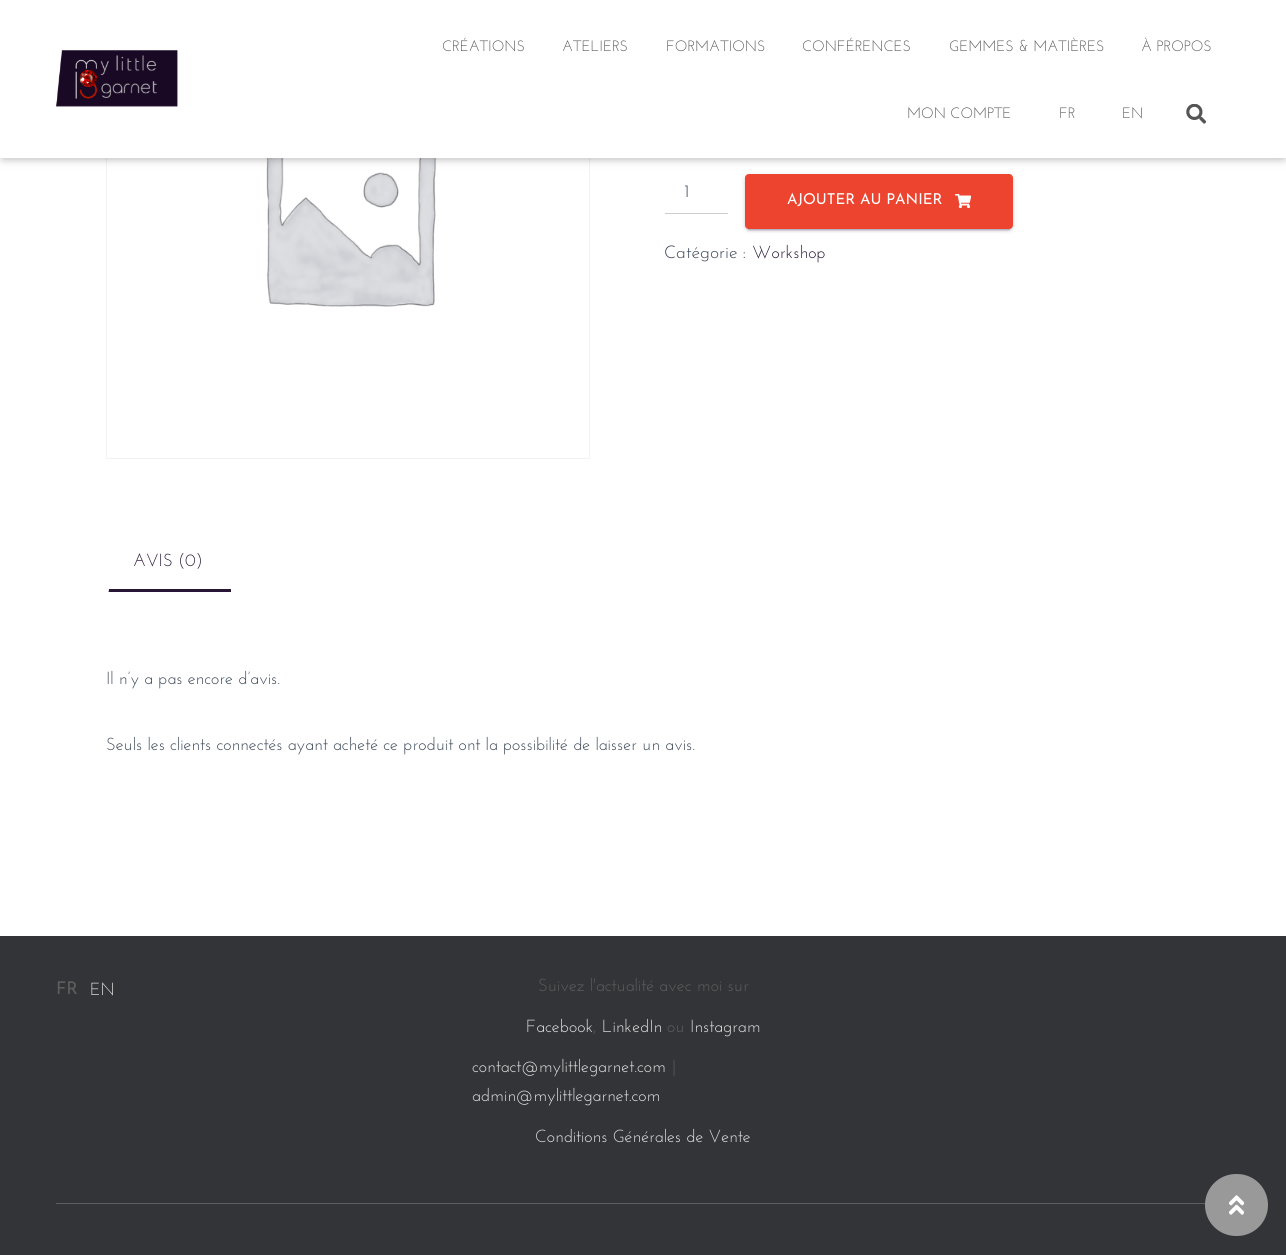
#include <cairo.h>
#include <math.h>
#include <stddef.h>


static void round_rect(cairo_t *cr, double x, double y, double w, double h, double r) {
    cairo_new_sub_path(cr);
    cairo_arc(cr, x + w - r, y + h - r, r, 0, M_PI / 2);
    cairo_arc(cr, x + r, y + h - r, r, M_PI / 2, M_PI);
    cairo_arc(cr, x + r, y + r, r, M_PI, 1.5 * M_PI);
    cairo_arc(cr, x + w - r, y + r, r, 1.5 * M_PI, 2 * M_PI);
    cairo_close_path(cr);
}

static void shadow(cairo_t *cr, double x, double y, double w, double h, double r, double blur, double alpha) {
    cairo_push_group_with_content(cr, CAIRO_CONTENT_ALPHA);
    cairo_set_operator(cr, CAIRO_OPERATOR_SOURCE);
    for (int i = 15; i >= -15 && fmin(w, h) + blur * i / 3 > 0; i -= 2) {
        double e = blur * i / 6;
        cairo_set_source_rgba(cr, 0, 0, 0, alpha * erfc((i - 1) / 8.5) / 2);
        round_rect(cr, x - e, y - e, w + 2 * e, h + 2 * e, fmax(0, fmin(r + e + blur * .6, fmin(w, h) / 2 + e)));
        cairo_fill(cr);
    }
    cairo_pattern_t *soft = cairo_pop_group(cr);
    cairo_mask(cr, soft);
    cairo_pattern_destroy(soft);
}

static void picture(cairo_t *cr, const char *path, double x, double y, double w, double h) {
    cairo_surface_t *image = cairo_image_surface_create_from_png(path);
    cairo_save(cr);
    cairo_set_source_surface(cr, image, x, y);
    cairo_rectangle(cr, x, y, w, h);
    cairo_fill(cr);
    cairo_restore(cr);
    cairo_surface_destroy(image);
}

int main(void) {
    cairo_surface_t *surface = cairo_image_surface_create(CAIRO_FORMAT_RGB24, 1286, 1255);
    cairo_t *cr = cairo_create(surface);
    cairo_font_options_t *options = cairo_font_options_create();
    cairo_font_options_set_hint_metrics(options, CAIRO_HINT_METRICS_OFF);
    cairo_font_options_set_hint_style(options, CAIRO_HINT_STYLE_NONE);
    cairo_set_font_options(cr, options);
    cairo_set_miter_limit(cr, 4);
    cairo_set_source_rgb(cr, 0.196, 0.204, 0.216);
    cairo_paint(cr);
    cairo_set_source_rgb(cr, 1, 1, 1);
    cairo_rectangle(cr, 0, 158, 1286, 778);
    cairo_fill(cr);
    cairo_rectangle(cr, 106.5, -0.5, 483, 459);
    cairo_set_source_rgb(cr, 0.949, 0.949, 0.949);
    cairo_set_line_width(cr, 1);
    cairo_stroke(cr);
    picture(cr, "img3.png", 266, 158, 171, 149);
    cairo_set_source_rgb(cr, 0, 0, 0);
    shadow(cr, 3, 8, 1281, 152, 0, 3, 0.1);
    cairo_set_source_rgb(cr, 0.153, 0.086, 0.208);
    shadow(cr, 745, 175, 268, 55, 4, 3, 0.12);
    shadow(cr, 748, 180, 262, 50, 1, 0.5, 0.2);
    shadow(cr, 745, 176, 268, 55, 4, 1, 0.14);
    cairo_set_source_rgb(cr, 0.925, 0.267, 0.184);
    round_rect(cr, 745, 174, 268, 55, 4);
    cairo_fill(cr);
    cairo_set_source_rgb(cr, 0, 0, 0);
    shadow(cr, 0, 1, 1286, 158, 0, 6, 0.12);
    shadow(cr, 8, 9, 1271, 142, 0, 6, 0.42);
    cairo_set_source_rgb(cr, 1, 1, 1);
    cairo_rectangle(cr, 0, 0, 1286, 158);
    cairo_fill(cr);
    picture(cr, "img1.png", 56, 50, 122, 57);
    cairo_select_font_face(cr, "Josefin Sans", CAIRO_FONT_SLANT_NORMAL, CAIRO_FONT_WEIGHT_NORMAL);
    cairo_set_font_size(cr, 15);
    cairo_set_source_rgb(cr, 0.333, 0.333, 0.333);
    cairo_move_to(cr, 442, 51);
    cairo_show_text(cr, "CRÉATIONS");
    cairo_move_to(cr, 562, 51);
    cairo_show_text(cr, "ATELIERS");
    cairo_move_to(cr, 666, 51);
    cairo_show_text(cr, "FORMATIONS");
    cairo_move_to(cr, 802, 51);
    cairo_show_text(cr, "CONFÉRENCES");
    cairo_move_to(cr, 949, 51);
    cairo_show_text(cr, "GEMMES & MATIÈRES");
    cairo_move_to(cr, 1141, 51);
    cairo_show_text(cr, "À PROPOS");
    cairo_move_to(cr, 907, 118);
    cairo_show_text(cr, "MON COMPTE");
    cairo_move_to(cr, 1059, 118);
    cairo_show_text(cr, "FR");
    cairo_move_to(cr, 1122, 118);
    cairo_show_text(cr, "EN");
    picture(cr, "img2.png", 1186, 104, 20, 20);
    cairo_set_source_rgb(cr, 0.8, 0.8, 0.8);
    cairo_rectangle(cr, 665, 213, 63, 1);
    cairo_fill(cr);
    cairo_select_font_face(cr, "Josefin Sans Light", CAIRO_FONT_SLANT_NORMAL, CAIRO_FONT_WEIGHT_NORMAL);
    cairo_set_font_size(cr, 17.5);
    cairo_set_source_rgb(cr, 0.235, 0.282, 0.345);
    cairo_move_to(cr, 684, 197);
    cairo_show_text(cr, "1");
    cairo_select_font_face(cr, "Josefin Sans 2", CAIRO_FONT_SLANT_NORMAL, CAIRO_FONT_WEIGHT_NORMAL);
    cairo_set_font_size(cr, 15);
    cairo_set_source_rgb(cr, 1, 1, 1);
    cairo_move_to(cr, 787, 204);
    cairo_show_text(cr, "AJOUTER AU PANIER");
    picture(cr, "img4.png", 955, 194, 16, 14);
    cairo_select_font_face(cr, "Josefin Sans Light", CAIRO_FONT_SLANT_NORMAL, CAIRO_FONT_WEIGHT_NORMAL);
    cairo_set_font_size(cr, 17.5);
    cairo_set_source_rgb(cr, 0.235, 0.282, 0.345);
    cairo_move_to(cr, 664, 258);
    cairo_show_text(cr, "Catégorie :");
    cairo_select_font_face(cr, "Josefin Sans", CAIRO_FONT_SLANT_NORMAL, CAIRO_FONT_WEIGHT_NORMAL);
    cairo_set_source_rgb(cr, 0.153, 0.086, 0.208);
    cairo_move_to(cr, 752, 258);
    cairo_show_text(cr, "Workshop");
    cairo_rectangle(cr, 106, 589, 125, 3);
    cairo_fill(cr);
    cairo_move_to(cr, 133, 566);
    cairo_show_text(cr, "AVIS (0)");
    cairo_set_source_rgb(cr, 1, 1, 1);
    cairo_new_path(cr);
    cairo_move_to(cr, 103, 592);
    cairo_line_to(cr, 103, 595);
    cairo_curve_to(cr, 107, 595, 109, 593, 109, 589);
    cairo_line_to(cr, 106, 589);
    cairo_curve_to(cr, 105.5, 590.5, 104.5, 591.5, 103, 592);
    cairo_close_path(cr);
    cairo_fill(cr);
    cairo_set_source_rgb(cr, 0.235, 0.282, 0.345);
    cairo_move_to(cr, 106, 684);
    cairo_show_text(cr, "Il n’y a pas encore d’avis.");
    cairo_move_to(cr, 106, 750);
    cairo_show_text(cr, "Seuls les clients connectés ayant acheté ce produit ont la possibilité de laisser un avis.");
    cairo_select_font_face(cr, "Josefin Sans 2", CAIRO_FONT_SLANT_NORMAL, CAIRO_FONT_WEIGHT_NORMAL);
    cairo_set_source_rgb(cr, 0.369, 0.369, 0.369);
    cairo_move_to(cr, 56, 994);
    cairo_show_text(cr, "FR");
    cairo_select_font_face(cr, "Josefin Sans", CAIRO_FONT_SLANT_NORMAL, CAIRO_FONT_WEIGHT_NORMAL);
    cairo_set_source_rgb(cr, 0.886, 0.89, 0.89);
    cairo_move_to(cr, 90, 995);
    cairo_show_text(cr, "EN");
    cairo_set_source_rgb(cr, 0.369, 0.369, 0.369);
    cairo_move_to(cr, 538, 991);
    cairo_show_text(cr, "Suivez l'actualité avec moi sur");
    cairo_set_source_rgb(cr, 0.886, 0.89, 0.89);
    cairo_move_to(cr, 526, 1032);
    cairo_show_text(cr, "Facebook");
    cairo_set_source_rgb(cr, 0.369, 0.369, 0.369);
    cairo_move_to(cr, 593, 1032);
    cairo_show_text(cr, ",");
    cairo_set_source_rgb(cr, 0.886, 0.89, 0.89);
    cairo_move_to(cr, 602, 1032);
    cairo_show_text(cr, "LinkedIn");
    cairo_set_source_rgb(cr, 0.369, 0.369, 0.369);
    cairo_move_to(cr, 667, 1032);
    cairo_show_text(cr, "ou");
    cairo_set_source_rgb(cr, 0.886, 0.89, 0.89);
    cairo_move_to(cr, 690, 1032);
    cairo_show_text(cr, "Instagram");
    cairo_move_to(cr, 472, 1072);
    cairo_show_text(cr, "contact@mylittlegarnet.com");
    cairo_set_source_rgb(cr, 0.369, 0.369, 0.369);
    cairo_move_to(cr, 672, 1072);
    cairo_show_text(cr, "|");
    cairo_set_source_rgb(cr, 0.886, 0.89, 0.89);
    cairo_move_to(cr, 472, 1101);
    cairo_show_text(cr, "admin@mylittlegarnet.com");
    cairo_move_to(cr, 535, 1142);
    cairo_show_text(cr, "Conditions Générales de Vente");
    cairo_set_source_rgb(cr, 0.369, 0.369, 0.369);
    cairo_rectangle(cr, 56, 1203, 1150, 1);
    cairo_fill(cr);
    cairo_set_source_rgb(cr, 0.6, 0.6, 0.6);
    round_rect(cr, 1205, 1174, 63, 62, 31);
    cairo_fill(cr);
    picture(cr, "img5.png", 1229, 1195, 15, 20);
    cairo_surface_write_to_png(surface, "page.png");
    cairo_font_options_destroy(options);
    cairo_destroy(cr);
    cairo_surface_destroy(surface);
    return 0;
}
